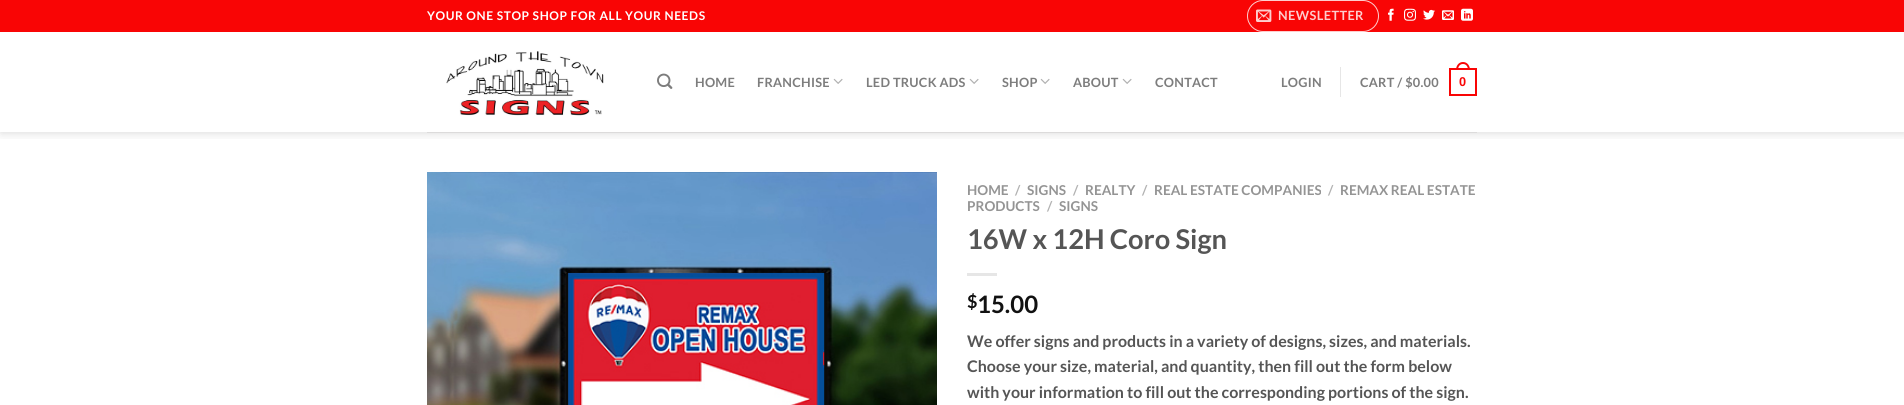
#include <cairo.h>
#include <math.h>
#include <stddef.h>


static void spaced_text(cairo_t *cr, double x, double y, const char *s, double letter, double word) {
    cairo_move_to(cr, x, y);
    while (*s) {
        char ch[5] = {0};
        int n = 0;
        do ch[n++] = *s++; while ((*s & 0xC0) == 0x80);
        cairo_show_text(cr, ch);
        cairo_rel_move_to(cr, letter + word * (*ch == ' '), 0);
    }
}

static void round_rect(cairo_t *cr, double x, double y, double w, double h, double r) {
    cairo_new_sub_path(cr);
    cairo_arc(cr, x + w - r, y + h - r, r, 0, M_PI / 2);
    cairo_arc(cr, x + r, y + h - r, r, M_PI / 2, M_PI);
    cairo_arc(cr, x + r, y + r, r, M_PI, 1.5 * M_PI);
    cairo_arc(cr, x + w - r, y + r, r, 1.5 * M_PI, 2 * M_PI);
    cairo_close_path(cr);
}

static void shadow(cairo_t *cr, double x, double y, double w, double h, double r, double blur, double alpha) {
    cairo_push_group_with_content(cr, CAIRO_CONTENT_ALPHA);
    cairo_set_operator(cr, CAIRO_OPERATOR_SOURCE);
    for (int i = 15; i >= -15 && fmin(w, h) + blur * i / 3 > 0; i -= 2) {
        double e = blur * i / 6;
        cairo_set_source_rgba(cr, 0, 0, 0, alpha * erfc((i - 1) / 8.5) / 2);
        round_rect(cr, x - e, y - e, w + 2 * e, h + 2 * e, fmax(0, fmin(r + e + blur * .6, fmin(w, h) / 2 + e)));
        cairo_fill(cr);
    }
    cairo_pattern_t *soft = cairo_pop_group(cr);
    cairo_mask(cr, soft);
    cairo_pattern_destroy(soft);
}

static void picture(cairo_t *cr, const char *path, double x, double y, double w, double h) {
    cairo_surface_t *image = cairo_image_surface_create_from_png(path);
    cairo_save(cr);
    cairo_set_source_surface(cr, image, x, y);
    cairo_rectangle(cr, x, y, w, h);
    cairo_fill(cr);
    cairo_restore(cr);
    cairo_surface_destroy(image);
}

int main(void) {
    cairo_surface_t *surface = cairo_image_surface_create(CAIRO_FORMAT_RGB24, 1904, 405);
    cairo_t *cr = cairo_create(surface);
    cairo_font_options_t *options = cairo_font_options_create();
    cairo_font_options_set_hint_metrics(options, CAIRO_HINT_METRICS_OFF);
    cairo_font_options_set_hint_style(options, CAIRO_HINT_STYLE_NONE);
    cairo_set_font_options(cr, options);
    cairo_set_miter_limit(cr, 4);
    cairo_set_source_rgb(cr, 1, 1, 1);
    cairo_paint(cr);
    cairo_save(cr);
    cairo_rectangle(cr, 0, 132, 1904, 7);
    cairo_clip(cr);
    cairo_set_source_rgb(cr, 0, 0, 0);
    shadow(cr, 1, 1, 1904, 132, 0, 5, 0.15);
    cairo_restore(cr);
    cairo_set_source_rgb(cr, 0.976, 0.02, 0.02);
    cairo_rectangle(cr, 0, 0, 1904, 32);
    cairo_fill(cr);
    cairo_select_font_face(cr, "Lato", CAIRO_FONT_SLANT_NORMAL, CAIRO_FONT_WEIGHT_BOLD);
    cairo_set_font_size(cr, 12);
    cairo_set_source_rgb(cr, 1, 1, 1);
    spaced_text(cr, 427, 20, "YOUR ONE STOP SHOP FOR ALL YOUR NEEDS", 0.6, 0);
    round_rect(cr, 1247.5, 0.5, 131, 31, 15.5);
    cairo_set_source_rgb(cr, 0.996, 0.804, 0.804);
    cairo_set_line_width(cr, 1);
    cairo_stroke(cr);
    picture(cr, "img1.png", 1256, 9, 16, 13);
    cairo_set_font_size(cr, 12.75);
    spaced_text(cr, 1278, 20, "NEWSLETTER", 0.4, 0);
    picture(cr, "img2.png", 1388, 8, 6, 13);
    picture(cr, "img3.png", 1404, 8, 12, 13);
    picture(cr, "img4.png", 1423, 9, 12, 11);
    picture(cr, "img5.png", 1442, 10, 12, 10);
    picture(cr, "img6.png", 1461, 8, 12, 13);
    picture(cr, "img7.png", 446, 51, 158, 65);
    picture(cr, "img8.png", 657, 73, 16, 16);
    cairo_set_source_rgb(cr, 0.49, 0.49, 0.49);
    spaced_text(cr, 695, 87, "HOME", 0.25, 0);
    spaced_text(cr, 757, 87, "FRANCHISE", 0.25, 0);
    picture(cr, "img9.png", 833, 78, 10, 6);
    spaced_text(cr, 866, 87, "LED TRUCK ADS", 0.25, 0);
    picture(cr, "img9.png", 969, 78, 10, 6);
    spaced_text(cr, 1002, 87, "SHOP", 0.25, 0);
    picture(cr, "img9.png", 1040, 78, 10, 6);
    spaced_text(cr, 1073, 87, "ABOUT", 0.25, 0);
    picture(cr, "img9.png", 1122, 78, 10, 6);
    spaced_text(cr, 1155, 87, "CONTACT", 0.25, 0);
    spaced_text(cr, 1281, 87, "LOGIN", 0.25, 0);
    cairo_set_source_rgb(cr, 0.902, 0.902, 0.902);
    cairo_rectangle(cr, 1340, 67, 1, 30);
    cairo_fill(cr);
    cairo_set_source_rgb(cr, 0.49, 0.49, 0.49);
    spaced_text(cr, 1360, 87, "CART / $0.00", 0.25, 0);
    cairo_rectangle(cr, 1450, 69, 26, 26);
    cairo_set_source_rgb(cr, 0.976, 0.02, 0.02);
    cairo_set_line_width(cr, 2);
    cairo_stroke(cr);
    cairo_set_fill_rule(cr, CAIRO_FILL_RULE_EVEN_ODD);
    cairo_new_path(cr);
    cairo_move_to(cr, 1463, 62);
    cairo_curve_to(cr, 1467.5, 62, 1470, 66, 1470, 70);
    cairo_line_to(cr, 1456, 70);
    cairo_curve_to(cr, 1456, 66, 1458.5, 62, 1463, 62);
    cairo_close_path(cr);
    cairo_move_to(cr, 1463, 64);
    cairo_curve_to(cr, 1466.5, 64, 1468, 67, 1468, 70);
    cairo_line_to(cr, 1458, 70);
    cairo_curve_to(cr, 1458, 67, 1459.5, 64, 1463, 64);
    cairo_close_path(cr);
    cairo_fill(cr);
    cairo_select_font_face(cr, "Liberation Sans", CAIRO_FONT_SLANT_NORMAL, CAIRO_FONT_WEIGHT_BOLD);
    spaced_text(cr, 1459, 86, "0", 0.25, 0);
    cairo_set_source_rgb(cr, 0.863, 0.859, 0.859);
    cairo_rectangle(cr, 427, 132, 1050, 1);
    cairo_fill(cr);
    picture(cr, "img10.png", 427, 172, 510, 233);
    cairo_select_font_face(cr, "Lato", CAIRO_FONT_SLANT_NORMAL, CAIRO_FONT_WEIGHT_BOLD);
    cairo_set_font_size(cr, 13.6);
    cairo_set_source_rgb(cr, 0.58, 0.58, 0.58);
    cairo_move_to(cr, 967, 195);
    cairo_show_text(cr, "HOME");
    cairo_set_source_rgb(cr, 0.698, 0.698, 0.698);
    cairo_move_to(cr, 1015, 195);
    cairo_show_text(cr, "/");
    cairo_set_source_rgb(cr, 0.58, 0.58, 0.58);
    cairo_move_to(cr, 1027, 195);
    cairo_show_text(cr, "SIGNS");
    cairo_set_source_rgb(cr, 0.698, 0.698, 0.698);
    cairo_move_to(cr, 1073, 195);
    cairo_show_text(cr, "/");
    cairo_set_source_rgb(cr, 0.58, 0.58, 0.58);
    cairo_move_to(cr, 1085, 195);
    cairo_show_text(cr, "REALTY");
    cairo_set_source_rgb(cr, 0.698, 0.698, 0.698);
    cairo_move_to(cr, 1142, 195);
    cairo_show_text(cr, "/");
    cairo_set_source_rgb(cr, 0.58, 0.58, 0.58);
    cairo_move_to(cr, 1154, 195);
    cairo_show_text(cr, "REAL ESTATE COMPANIES");
    cairo_set_source_rgb(cr, 0.698, 0.698, 0.698);
    cairo_move_to(cr, 1328, 195);
    cairo_show_text(cr, "/");
    cairo_set_source_rgb(cr, 0.58, 0.58, 0.58);
    cairo_move_to(cr, 1340, 195);
    cairo_show_text(cr, "REMAX REAL ESTATE");
    cairo_move_to(cr, 967, 211);
    cairo_show_text(cr, "PRODUCTS");
    cairo_set_source_rgb(cr, 0.698, 0.698, 0.698);
    cairo_move_to(cr, 1047, 211);
    cairo_show_text(cr, "/");
    cairo_set_source_rgb(cr, 0.58, 0.58, 0.58);
    cairo_move_to(cr, 1059, 211);
    cairo_show_text(cr, "SIGNS");
    cairo_set_font_size(cr, 27.25);
    cairo_set_source_rgb(cr, 0.333, 0.333, 0.333);
    cairo_move_to(cr, 967, 249);
    cairo_show_text(cr, "16W x 12H Coro Sign");
    cairo_set_source_rgb(cr, 0.902, 0.902, 0.902);
    cairo_rectangle(cr, 967, 273, 30, 3);
    cairo_fill(cr);
    cairo_set_font_size(cr, 18);
    cairo_set_source_rgb(cr, 0.067, 0.067, 0.067);
    cairo_move_to(cr, 967, 308);
    cairo_show_text(cr, "$");
    cairo_set_font_size(cr, 24);
    cairo_move_to(cr, 977, 313);
    cairo_show_text(cr, "15.00");
    cairo_set_font_size(cr, 16);
    cairo_set_source_rgb(cr, 0.333, 0.333, 0.333);
    cairo_move_to(cr, 967, 347);
    cairo_show_text(cr, "We offer signs and products in a variety of designs, sizes, and materials.");
    cairo_move_to(cr, 967, 372);
    cairo_show_text(cr, "Choose your size, material, and quantity, then fill out the form below");
    cairo_move_to(cr, 967, 398);
    cairo_show_text(cr, "with your information to fill out the corresponding portions of the sign.");
    cairo_surface_write_to_png(surface, "page.png");
    cairo_font_options_destroy(options);
    cairo_destroy(cr);
    cairo_surface_destroy(surface);
    return 0;
}
